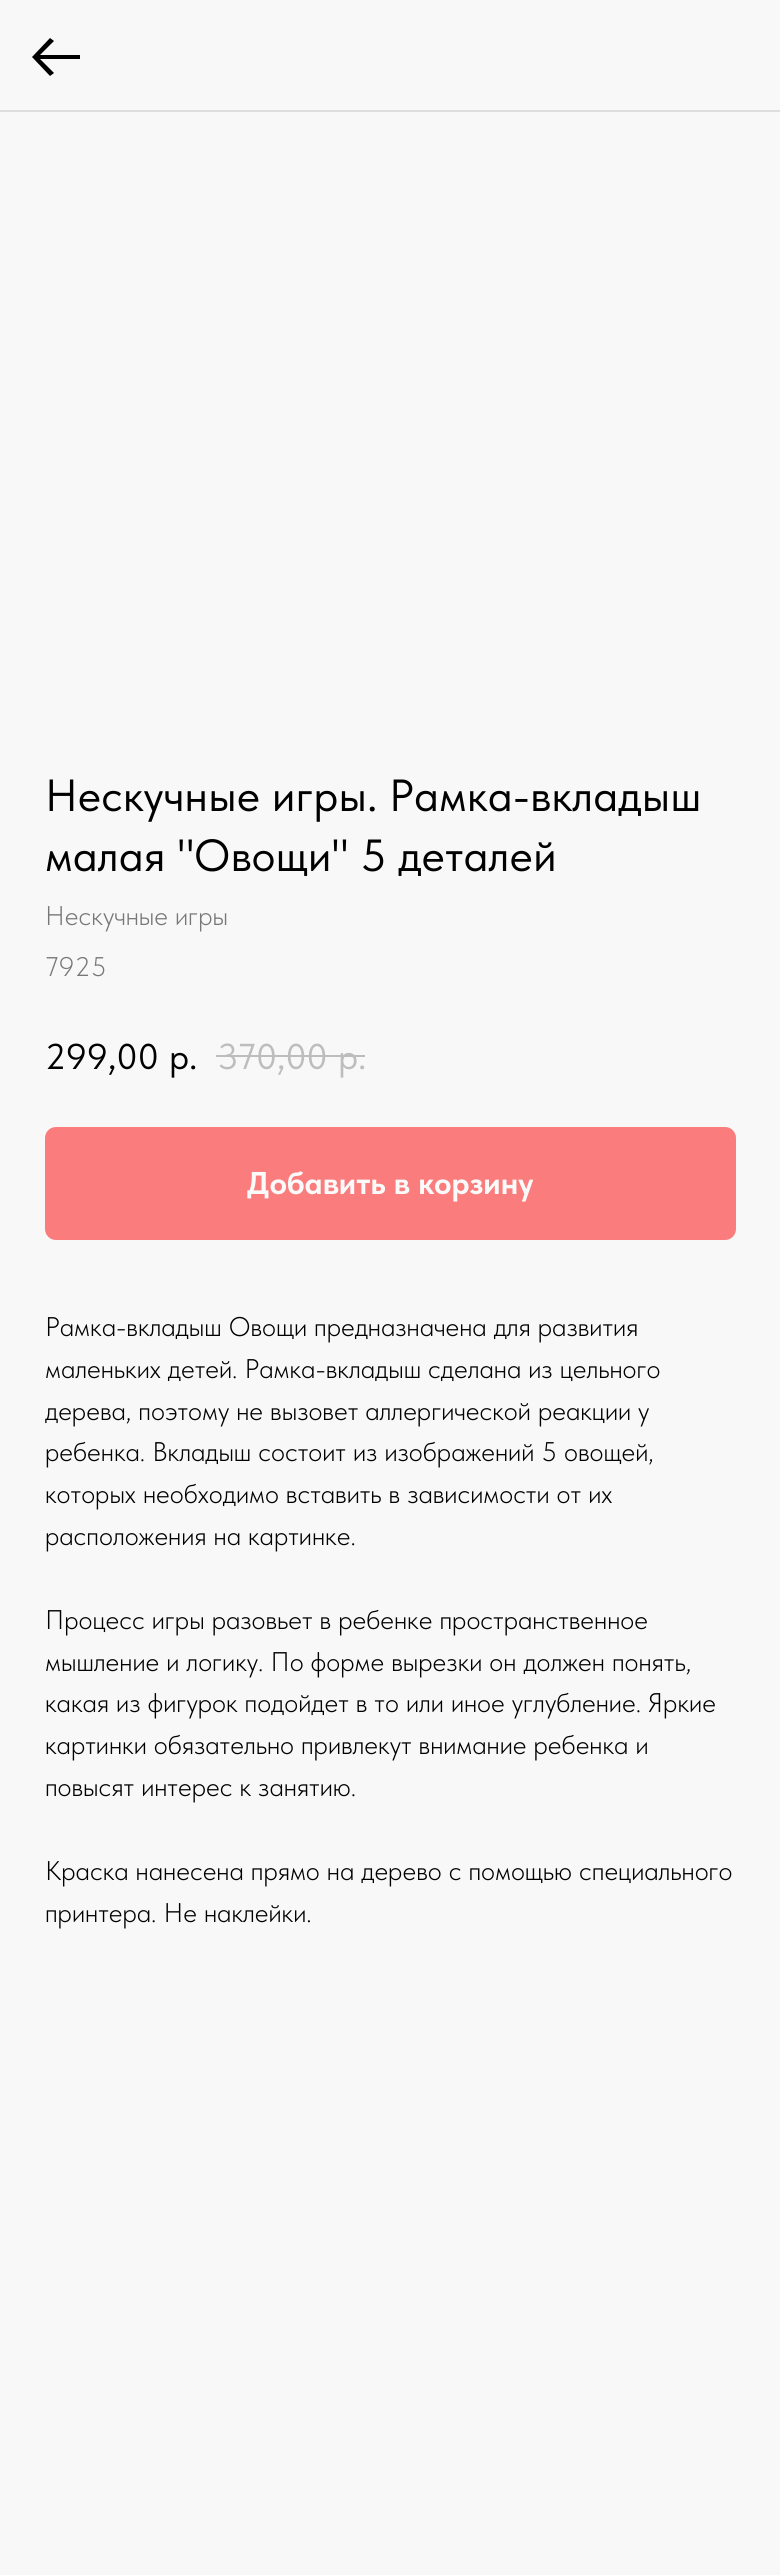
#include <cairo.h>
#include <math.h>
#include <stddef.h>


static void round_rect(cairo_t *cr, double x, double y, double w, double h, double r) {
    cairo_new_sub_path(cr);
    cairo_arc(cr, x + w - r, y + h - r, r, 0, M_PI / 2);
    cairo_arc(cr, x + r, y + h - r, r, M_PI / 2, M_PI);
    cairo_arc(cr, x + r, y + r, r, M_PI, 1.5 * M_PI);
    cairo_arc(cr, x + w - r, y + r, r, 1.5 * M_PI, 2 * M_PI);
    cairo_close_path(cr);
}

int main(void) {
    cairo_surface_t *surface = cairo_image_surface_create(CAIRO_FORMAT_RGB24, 780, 2575);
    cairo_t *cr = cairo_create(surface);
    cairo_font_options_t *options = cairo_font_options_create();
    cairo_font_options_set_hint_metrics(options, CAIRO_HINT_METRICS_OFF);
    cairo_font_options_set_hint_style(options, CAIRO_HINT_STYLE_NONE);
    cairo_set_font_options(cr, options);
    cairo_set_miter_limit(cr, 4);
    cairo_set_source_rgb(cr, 0.969, 0.969, 0.969);
    cairo_paint(cr);
    cairo_set_source_rgb(cr, 0.871, 0.871, 0.871);
    cairo_rectangle(cr, 0, 110, 780, 2);
    cairo_fill(cr);
    cairo_set_source_rgb(cr, 0, 0, 0);
    cairo_new_path(cr);
    cairo_move_to(cr, 50, 38);
    cairo_line_to(cr, 54, 41);
    cairo_line_to(cr, 40, 55);
    cairo_line_to(cr, 80, 55);
    cairo_line_to(cr, 80, 59);
    cairo_line_to(cr, 40, 59);
    cairo_line_to(cr, 54, 73);
    cairo_line_to(cr, 50, 76);
    cairo_line_to(cr, 32, 57);
    cairo_close_path(cr);
    cairo_fill(cr);
    cairo_select_font_face(cr, "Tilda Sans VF", CAIRO_FONT_SLANT_NORMAL, CAIRO_FONT_WEIGHT_NORMAL);
    cairo_set_font_size(cr, 45);
    cairo_move_to(cr, 45, 811);
    cairo_show_text(cr, "Нескучные игры. Рамка-вкладыш");
    cairo_move_to(cr, 45, 871);
    cairo_show_text(cr, "малая \"Овощи\" 5 деталей");
    cairo_select_font_face(cr, "Tilda Sans VF Light", CAIRO_FONT_SLANT_NORMAL, CAIRO_FONT_WEIGHT_NORMAL);
    cairo_set_font_size(cr, 27);
    cairo_set_source_rgb(cr, 0.467, 0.467, 0.467);
    cairo_move_to(cr, 45, 925);
    cairo_show_text(cr, "Нескучные игры");
    cairo_move_to(cr, 45, 976);
    cairo_show_text(cr, "7925");
    cairo_select_font_face(cr, "Tilda Sans VF", CAIRO_FONT_SLANT_NORMAL, CAIRO_FONT_WEIGHT_NORMAL);
    cairo_set_font_size(cr, 36);
    cairo_set_source_rgb(cr, 0, 0, 0);
    cairo_move_to(cr, 45, 1069);
    cairo_show_text(cr, "299,00");
    cairo_move_to(cr, 169, 1069);
    cairo_show_text(cr, "р.");
    cairo_set_source_rgb(cr, 0.741, 0.741, 0.741);
    cairo_move_to(cr, 217, 1069);
    cairo_show_text(cr, "370,00");
    cairo_move_to(cr, 338, 1069);
    cairo_show_text(cr, "р.");
    cairo_rectangle(cr, 216, 1055, 149, 2);
    cairo_fill(cr);
    cairo_set_source_rgb(cr, 0.98, 0.486, 0.486);
    round_rect(cr, 45, 1127, 691, 113, 11);
    cairo_fill(cr);
    cairo_select_font_face(cr, "Tilda Sans VF", CAIRO_FONT_SLANT_NORMAL, CAIRO_FONT_WEIGHT_BOLD);
    cairo_set_font_size(cr, 31.5);
    cairo_set_source_rgb(cr, 0.98, 0.98, 0.98);
    cairo_move_to(cr, 247, 1194);
    cairo_show_text(cr, "Добавить в корзину");
    cairo_select_font_face(cr, "Tilda Sans VF Light", CAIRO_FONT_SLANT_NORMAL, CAIRO_FONT_WEIGHT_NORMAL);
    cairo_set_font_size(cr, 27);
    cairo_set_source_rgb(cr, 0, 0, 0);
    cairo_move_to(cr, 45, 1336);
    cairo_show_text(cr, "Рамка-вкладыш Овощи предназначена для развития");
    cairo_move_to(cr, 45, 1378);
    cairo_show_text(cr, "маленьких детей. Рамка-вкладыш сделана из цельного");
    cairo_move_to(cr, 45, 1420);
    cairo_show_text(cr, "дерева, поэтому не вызовет аллергической реакции у");
    cairo_move_to(cr, 45, 1461);
    cairo_show_text(cr, "ребенка. Вкладыш состоит из изображений 5 овощей,");
    cairo_move_to(cr, 45, 1503);
    cairo_show_text(cr, "которых необходимо вставить в зависимости от их");
    cairo_move_to(cr, 45, 1545);
    cairo_show_text(cr, "расположения на картинке.");
    cairo_move_to(cr, 45, 1629);
    cairo_show_text(cr, "Процесс игры разовьет в ребенке пространственное");
    cairo_move_to(cr, 45, 1671);
    cairo_show_text(cr, "мышление и логику. По форме вырезки он должен понять,");
    cairo_move_to(cr, 45, 1712);
    cairo_show_text(cr, "какая из фигурок подойдет в то или иное углубление. Яркие");
    cairo_move_to(cr, 45, 1754);
    cairo_show_text(cr, "картинки обязательно привлекут внимание ребенка и");
    cairo_move_to(cr, 45, 1796);
    cairo_show_text(cr, "повысят интерес к занятию.");
    cairo_move_to(cr, 45, 1880);
    cairo_show_text(cr, "Краска нанесена прямо на дерево с помощью специального");
    cairo_move_to(cr, 45, 1922);
    cairo_show_text(cr, "принтера. Не наклейки.");
    cairo_surface_write_to_png(surface, "page.png");
    cairo_font_options_destroy(options);
    cairo_destroy(cr);
    cairo_surface_destroy(surface);
    return 0;
}
